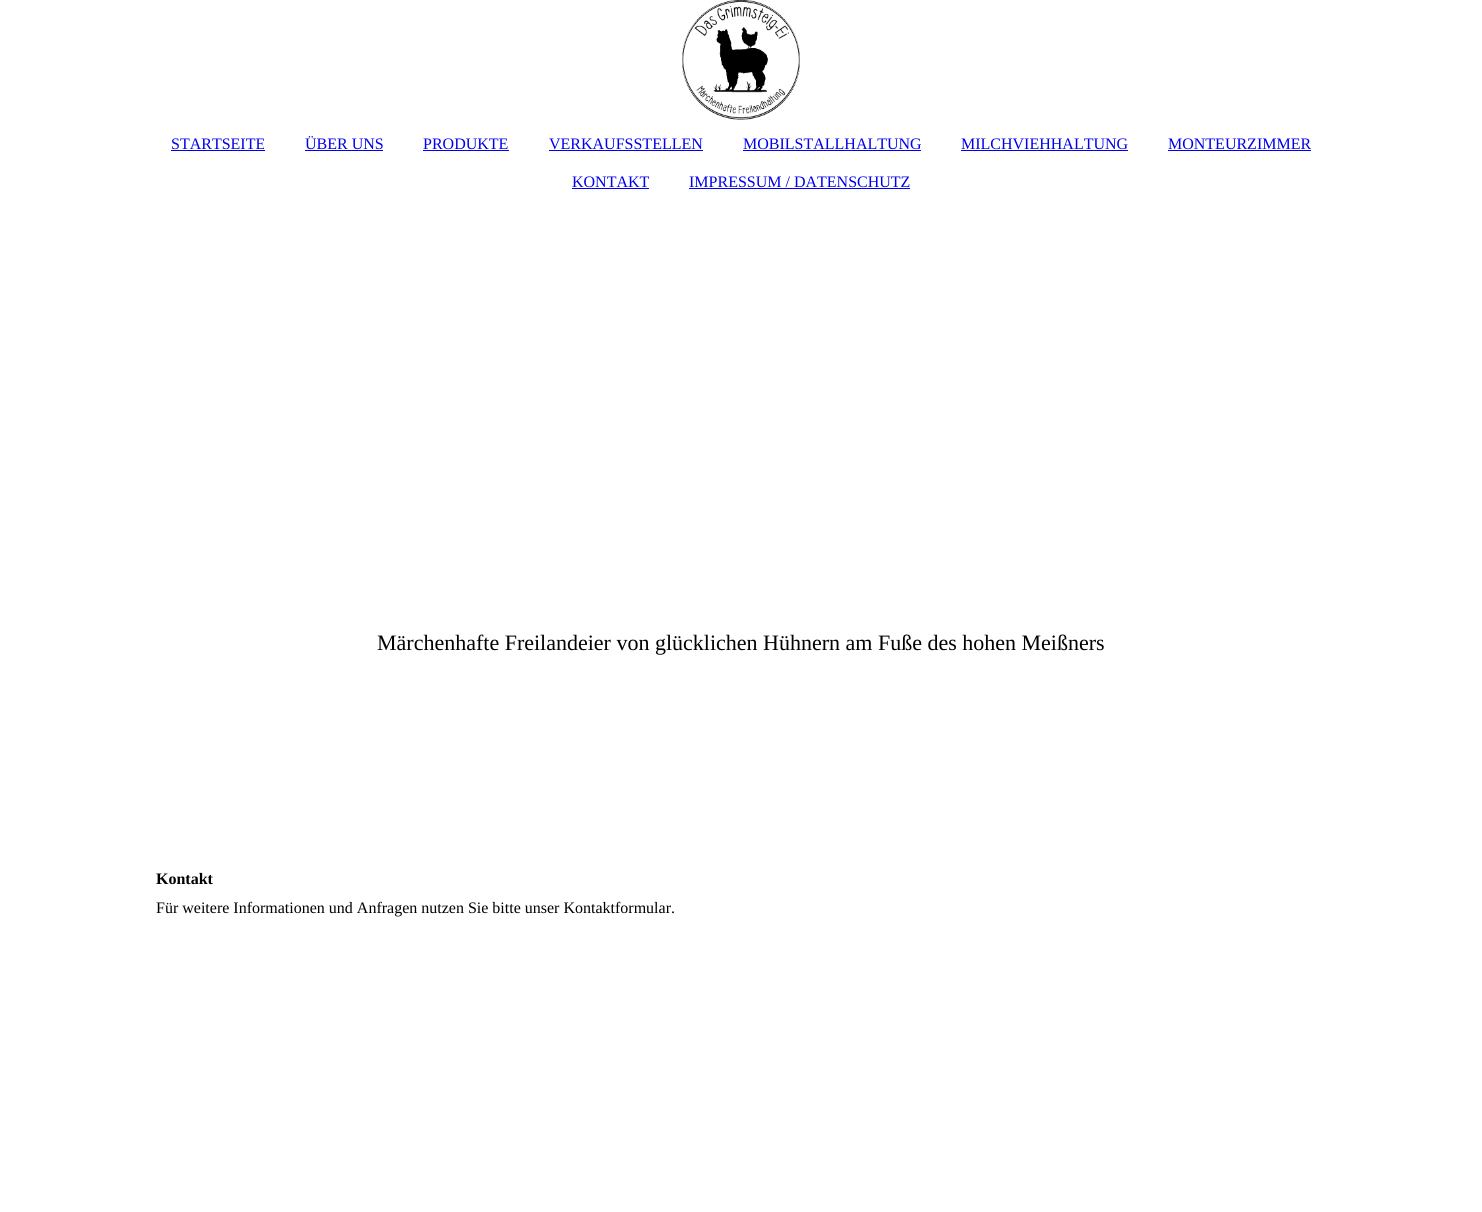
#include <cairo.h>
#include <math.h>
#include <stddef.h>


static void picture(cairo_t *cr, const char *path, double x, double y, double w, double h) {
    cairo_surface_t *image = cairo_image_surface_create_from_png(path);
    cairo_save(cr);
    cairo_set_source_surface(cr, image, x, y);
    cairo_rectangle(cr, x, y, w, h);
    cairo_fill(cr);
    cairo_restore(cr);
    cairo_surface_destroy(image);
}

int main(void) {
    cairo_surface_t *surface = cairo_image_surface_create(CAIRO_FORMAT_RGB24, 1482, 1212);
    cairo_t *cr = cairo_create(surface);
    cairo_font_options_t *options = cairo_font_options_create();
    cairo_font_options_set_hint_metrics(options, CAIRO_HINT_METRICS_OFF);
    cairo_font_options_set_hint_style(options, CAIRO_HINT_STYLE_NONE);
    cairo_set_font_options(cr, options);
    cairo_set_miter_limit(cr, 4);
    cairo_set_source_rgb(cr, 1, 1, 1);
    cairo_paint(cr);
    picture(cr, "img1.png", 682, 0, 118, 120);
    cairo_select_font_face(cr, "Liberation Serif", CAIRO_FONT_SLANT_NORMAL, CAIRO_FONT_WEIGHT_NORMAL);
    cairo_set_font_size(cr, 16);
    cairo_set_source_rgb(cr, 0, 0, 0.933);
    cairo_move_to(cr, 171, 149);
    cairo_show_text(cr, "STARTSEITE");
    cairo_rectangle(cr, 171, 150, 94, 1);
    cairo_fill(cr);
    cairo_move_to(cr, 305, 149);
    cairo_show_text(cr, "ÜBER UNS");
    cairo_rectangle(cr, 305, 150, 78, 1);
    cairo_fill(cr);
    cairo_move_to(cr, 423, 149);
    cairo_show_text(cr, "PRODUKTE");
    cairo_rectangle(cr, 423, 150, 86, 1);
    cairo_fill(cr);
    cairo_move_to(cr, 549, 149);
    cairo_show_text(cr, "VERKAUFSSTELLEN");
    cairo_rectangle(cr, 549, 150, 154, 1);
    cairo_fill(cr);
    cairo_move_to(cr, 743, 149);
    cairo_show_text(cr, "MOBILSTALLHALTUNG");
    cairo_rectangle(cr, 743, 150, 178, 1);
    cairo_fill(cr);
    cairo_move_to(cr, 961, 149);
    cairo_show_text(cr, "MILCHVIEHHALTUNG");
    cairo_rectangle(cr, 961, 150, 167, 1);
    cairo_fill(cr);
    cairo_move_to(cr, 1168, 149);
    cairo_show_text(cr, "MONTEURZIMMER");
    cairo_rectangle(cr, 1168, 150, 143, 1);
    cairo_fill(cr);
    cairo_move_to(cr, 572, 187);
    cairo_show_text(cr, "KONTAKT");
    cairo_rectangle(cr, 572, 188, 77, 1);
    cairo_fill(cr);
    cairo_move_to(cr, 689, 187);
    cairo_show_text(cr, "IMPRESSUM / DATENSCHUTZ");
    cairo_rectangle(cr, 689, 188, 221, 1);
    cairo_fill(cr);
    cairo_set_font_size(cr, 22);
    cairo_set_source_rgb(cr, 0, 0, 0);
    cairo_move_to(cr, 377, 650);
    cairo_show_text(cr, "Märchenhafte Freilandeier von glücklichen Hühnern am Fuße des hohen Meißners");
    cairo_select_font_face(cr, "Liberation Serif", CAIRO_FONT_SLANT_NORMAL, CAIRO_FONT_WEIGHT_BOLD);
    cairo_set_font_size(cr, 16);
    cairo_move_to(cr, 156, 884);
    cairo_show_text(cr, "Kontakt");
    cairo_select_font_face(cr, "Liberation Serif", CAIRO_FONT_SLANT_NORMAL, CAIRO_FONT_WEIGHT_NORMAL);
    cairo_move_to(cr, 156, 913);
    cairo_show_text(cr, "Für weitere Informationen und Anfragen nutzen Sie bitte unser Kontaktformular.");
    cairo_surface_write_to_png(surface, "page.png");
    cairo_font_options_destroy(options);
    cairo_destroy(cr);
    cairo_surface_destroy(surface);
    return 0;
}
